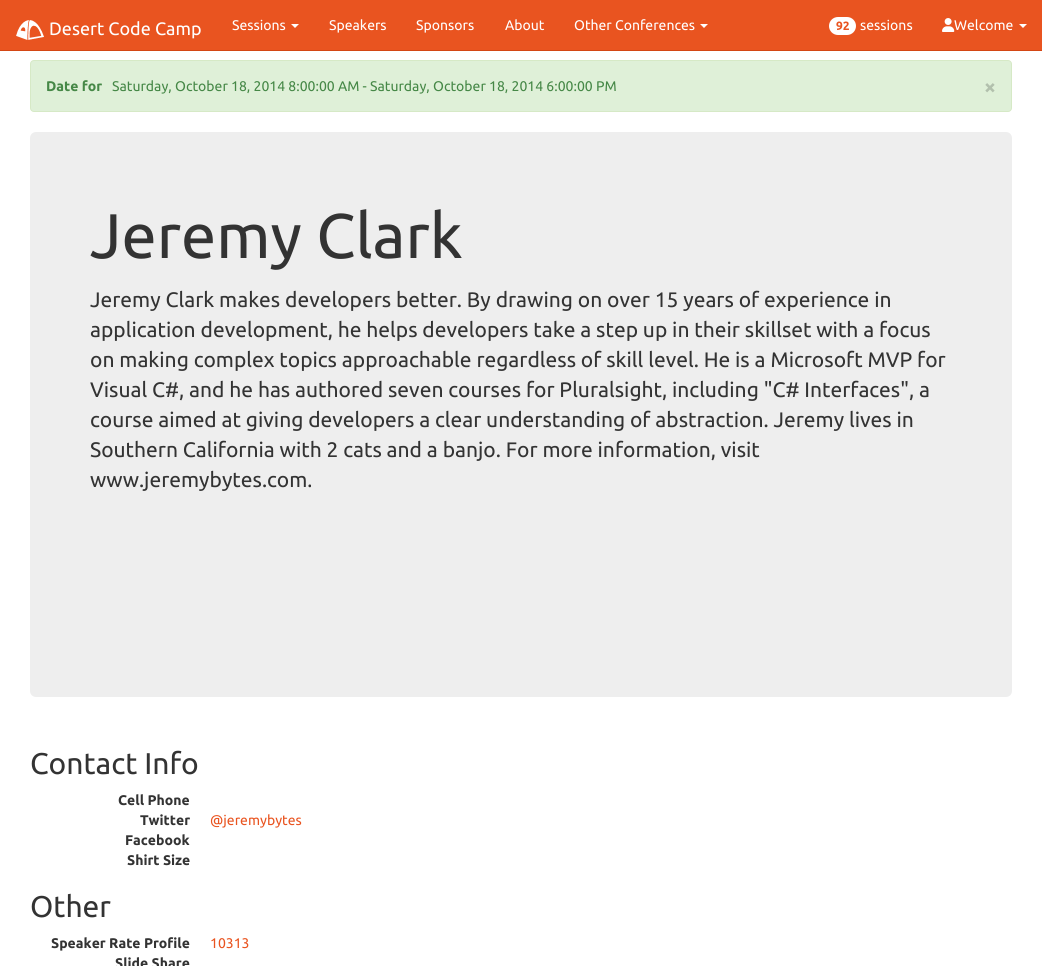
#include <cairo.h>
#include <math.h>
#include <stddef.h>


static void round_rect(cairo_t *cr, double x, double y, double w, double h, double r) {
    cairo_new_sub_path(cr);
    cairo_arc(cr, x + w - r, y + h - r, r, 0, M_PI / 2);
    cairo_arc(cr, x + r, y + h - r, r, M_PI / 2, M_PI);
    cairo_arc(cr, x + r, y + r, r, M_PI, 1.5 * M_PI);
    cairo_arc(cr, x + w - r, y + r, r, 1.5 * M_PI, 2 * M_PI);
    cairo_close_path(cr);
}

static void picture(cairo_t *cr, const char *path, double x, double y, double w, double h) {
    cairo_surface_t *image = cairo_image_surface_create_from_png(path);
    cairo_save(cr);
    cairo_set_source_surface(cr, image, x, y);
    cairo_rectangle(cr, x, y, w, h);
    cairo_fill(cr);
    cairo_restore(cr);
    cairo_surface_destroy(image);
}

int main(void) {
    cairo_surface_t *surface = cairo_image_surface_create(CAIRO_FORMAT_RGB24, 1042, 966);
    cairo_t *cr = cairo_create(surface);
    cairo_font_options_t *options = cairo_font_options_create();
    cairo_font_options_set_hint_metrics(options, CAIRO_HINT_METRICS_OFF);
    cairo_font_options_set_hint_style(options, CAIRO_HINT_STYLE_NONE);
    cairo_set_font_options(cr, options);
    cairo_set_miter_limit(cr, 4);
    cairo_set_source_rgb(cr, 1, 1, 1);
    cairo_paint(cr);
    cairo_set_source_rgb(cr, 0.914, 0.329, 0.125);
    cairo_rectangle(cr, 0, 0, 1042, 50);
    cairo_fill(cr);
    cairo_set_source_rgb(cr, 0.827, 0.275, 0.082);
    cairo_rectangle(cr, 0, 50, 1042, 1);
    cairo_fill(cr);
    picture(cr, "img1.png", 16, 20, 28, 20);
    cairo_select_font_face(cr, "Ubuntu", CAIRO_FONT_SLANT_NORMAL, CAIRO_FONT_WEIGHT_NORMAL);
    cairo_set_font_size(cr, 18);
    cairo_set_source_rgb(cr, 1, 1, 1);
    cairo_move_to(cr, 49, 35);
    cairo_show_text(cr, "Desert Code Camp");
    cairo_set_font_size(cr, 14);
    cairo_move_to(cr, 232, 30);
    cairo_show_text(cr, "Sessions");
    cairo_new_path(cr);
    cairo_move_to(cr, 291, 24);
    cairo_line_to(cr, 299, 24);
    cairo_line_to(cr, 295, 28);
    cairo_close_path(cr);
    cairo_fill(cr);
    cairo_move_to(cr, 329, 30);
    cairo_show_text(cr, "Speakers");
    cairo_move_to(cr, 416, 30);
    cairo_show_text(cr, "Sponsors");
    cairo_move_to(cr, 505, 30);
    cairo_show_text(cr, "About");
    cairo_move_to(cr, 574, 30);
    cairo_show_text(cr, "Other Conferences");
    cairo_new_path(cr);
    cairo_move_to(cr, 700, 24);
    cairo_line_to(cr, 708, 24);
    cairo_line_to(cr, 704, 28);
    cairo_close_path(cr);
    cairo_fill(cr);
    round_rect(cr, 829, 17, 27, 18, 9);
    cairo_fill(cr);
    cairo_select_font_face(cr, "Ubuntu", CAIRO_FONT_SLANT_NORMAL, CAIRO_FONT_WEIGHT_BOLD);
    cairo_set_font_size(cr, 12);
    cairo_set_source_rgb(cr, 0.914, 0.329, 0.125);
    cairo_move_to(cr, 836, 30);
    cairo_show_text(cr, "92");
    cairo_select_font_face(cr, "Ubuntu", CAIRO_FONT_SLANT_NORMAL, CAIRO_FONT_WEIGHT_NORMAL);
    cairo_set_font_size(cr, 14);
    cairo_set_source_rgb(cr, 1, 1, 1);
    cairo_move_to(cr, 860, 30);
    cairo_show_text(cr, "sessions");
    cairo_move_to(cr, 954, 30);
    cairo_show_text(cr, "Welcome");
    picture(cr, "img2.png", 942, 18, 13, 14);
    cairo_new_path(cr);
    cairo_move_to(cr, 1019, 24);
    cairo_line_to(cr, 1027, 24);
    cairo_line_to(cr, 1023, 28);
    cairo_close_path(cr);
    cairo_fill(cr);
    cairo_set_source_rgb(cr, 0.875, 0.941, 0.847);
    round_rect(cr, 30.5, 60.5, 981, 51, 3.5);
    cairo_fill_preserve(cr);
    cairo_set_source_rgb(cr, 0.839, 0.914, 0.776);
    cairo_set_line_width(cr, 1);
    cairo_stroke(cr);
    cairo_select_font_face(cr, "Ubuntu", CAIRO_FONT_SLANT_NORMAL, CAIRO_FONT_WEIGHT_BOLD);
    cairo_set_source_rgb(cr, 0.275, 0.533, 0.278);
    cairo_move_to(cr, 46, 91);
    cairo_show_text(cr, "Date for");
    cairo_select_font_face(cr, "Ubuntu", CAIRO_FONT_SLANT_NORMAL, CAIRO_FONT_WEIGHT_NORMAL);
    cairo_move_to(cr, 112, 91);
    cairo_show_text(cr, "Saturday, October 18, 2014 8:00:00 AM - Saturday, October 18, 2014 6:00:00 PM");
    cairo_select_font_face(cr, "Ubuntu", CAIRO_FONT_SLANT_NORMAL, CAIRO_FONT_WEIGHT_BOLD);
    cairo_set_font_size(cr, 21);
    cairo_set_source_rgb(cr, 0.698, 0.753, 0.678);
    cairo_move_to(cr, 984, 94);
    cairo_show_text(cr, "×");
    cairo_set_source_rgb(cr, 0.933, 0.933, 0.933);
    round_rect(cr, 30, 132, 982, 565, 6);
    cairo_fill(cr);
    cairo_select_font_face(cr, "Ubuntu", CAIRO_FONT_SLANT_NORMAL, CAIRO_FONT_WEIGHT_NORMAL);
    cairo_set_font_size(cr, 63);
    cairo_set_source_rgb(cr, 0.2, 0.2, 0.2);
    cairo_move_to(cr, 90, 258);
    cairo_show_text(cr, "Jeremy Clark");
    cairo_set_font_size(cr, 21);
    cairo_move_to(cr, 90, 307);
    cairo_show_text(cr, "Jeremy Clark makes developers better. By drawing on over 15 years of experience in");
    cairo_move_to(cr, 90, 337);
    cairo_show_text(cr, "application development, he helps developers take a step up in their skillset with a focus");
    cairo_move_to(cr, 90, 367);
    cairo_show_text(cr, "on making complex topics approachable regardless of skill level. He is a Microsoft MVP for");
    cairo_move_to(cr, 90, 397);
    cairo_show_text(cr, "Visual C#, and he has authored seven courses for Pluralsight, including \"C# Interfaces\", a");
    cairo_move_to(cr, 90, 427);
    cairo_show_text(cr, "course aimed at giving developers a clear understanding of abstraction. Jeremy lives in");
    cairo_move_to(cr, 90, 457);
    cairo_show_text(cr, "Southern California with 2 cats and a banjo. For more information, visit");
    cairo_move_to(cr, 90, 487);
    cairo_show_text(cr, "www.jeremybytes.com.");
    cairo_set_font_size(cr, 30);
    cairo_move_to(cr, 30, 774);
    cairo_show_text(cr, "Contact Info");
    cairo_select_font_face(cr, "Ubuntu", CAIRO_FONT_SLANT_NORMAL, CAIRO_FONT_WEIGHT_BOLD);
    cairo_set_font_size(cr, 14);
    cairo_move_to(cr, 118, 805);
    cairo_show_text(cr, "Cell Phone");
    cairo_move_to(cr, 140, 825);
    cairo_show_text(cr, "Twitter");
    cairo_select_font_face(cr, "Ubuntu", CAIRO_FONT_SLANT_NORMAL, CAIRO_FONT_WEIGHT_NORMAL);
    cairo_set_source_rgb(cr, 0.914, 0.329, 0.125);
    cairo_move_to(cr, 210, 825);
    cairo_show_text(cr, "@jeremybytes");
    cairo_select_font_face(cr, "Ubuntu", CAIRO_FONT_SLANT_NORMAL, CAIRO_FONT_WEIGHT_BOLD);
    cairo_set_source_rgb(cr, 0.2, 0.2, 0.2);
    cairo_move_to(cr, 125, 845);
    cairo_show_text(cr, "Facebook");
    cairo_move_to(cr, 127, 865);
    cairo_show_text(cr, "Shirt Size");
    cairo_select_font_face(cr, "Ubuntu", CAIRO_FONT_SLANT_NORMAL, CAIRO_FONT_WEIGHT_NORMAL);
    cairo_set_font_size(cr, 30);
    cairo_move_to(cr, 30, 917);
    cairo_show_text(cr, "Other");
    cairo_select_font_face(cr, "Ubuntu", CAIRO_FONT_SLANT_NORMAL, CAIRO_FONT_WEIGHT_BOLD);
    cairo_set_font_size(cr, 14);
    cairo_move_to(cr, 51, 948);
    cairo_show_text(cr, "Speaker Rate Profile");
    cairo_select_font_face(cr, "Ubuntu", CAIRO_FONT_SLANT_NORMAL, CAIRO_FONT_WEIGHT_NORMAL);
    cairo_set_source_rgb(cr, 0.914, 0.329, 0.125);
    cairo_move_to(cr, 210, 948);
    cairo_show_text(cr, "10313");
    cairo_select_font_face(cr, "Ubuntu", CAIRO_FONT_SLANT_NORMAL, CAIRO_FONT_WEIGHT_BOLD);
    cairo_set_source_rgb(cr, 0.2, 0.2, 0.2);
    cairo_move_to(cr, 115, 968);
    cairo_show_text(cr, "Slide Share");
    cairo_surface_write_to_png(surface, "page.png");
    cairo_font_options_destroy(options);
    cairo_destroy(cr);
    cairo_surface_destroy(surface);
    return 0;
}
